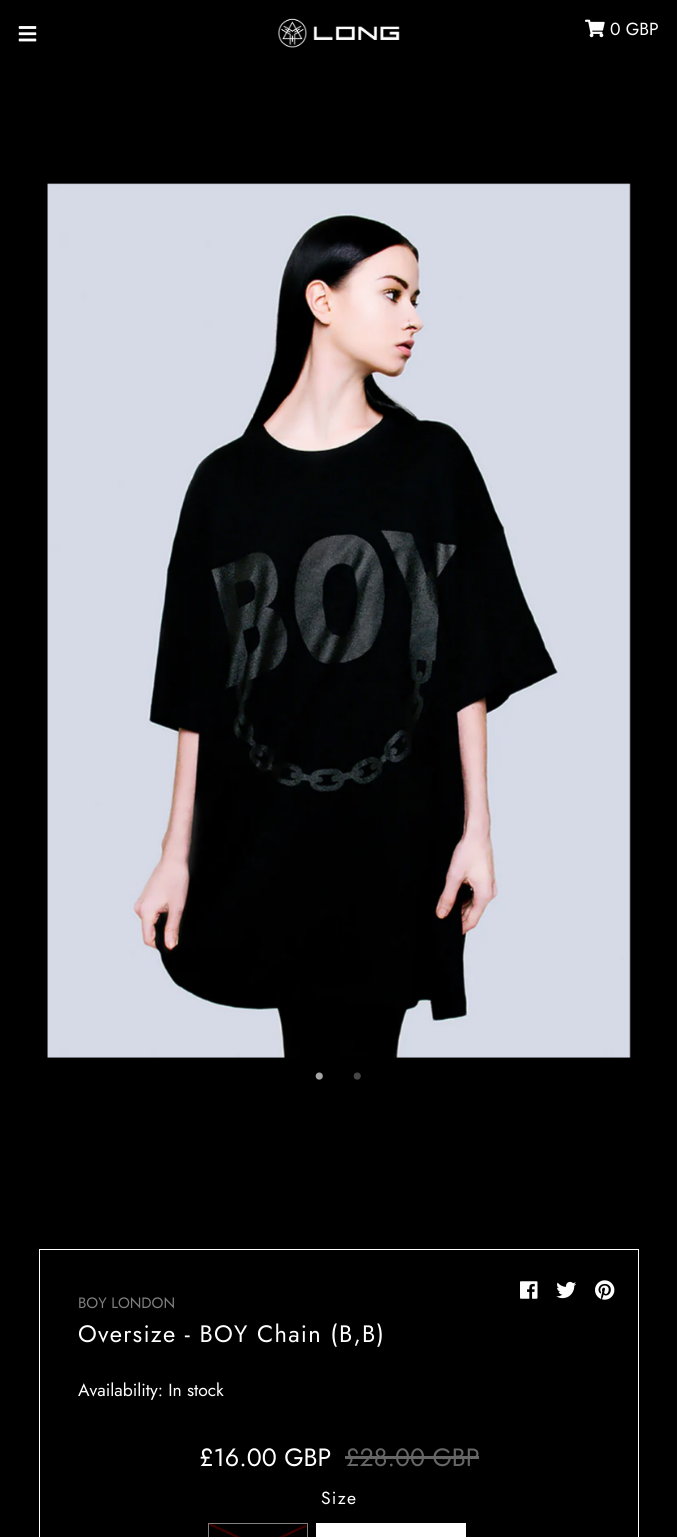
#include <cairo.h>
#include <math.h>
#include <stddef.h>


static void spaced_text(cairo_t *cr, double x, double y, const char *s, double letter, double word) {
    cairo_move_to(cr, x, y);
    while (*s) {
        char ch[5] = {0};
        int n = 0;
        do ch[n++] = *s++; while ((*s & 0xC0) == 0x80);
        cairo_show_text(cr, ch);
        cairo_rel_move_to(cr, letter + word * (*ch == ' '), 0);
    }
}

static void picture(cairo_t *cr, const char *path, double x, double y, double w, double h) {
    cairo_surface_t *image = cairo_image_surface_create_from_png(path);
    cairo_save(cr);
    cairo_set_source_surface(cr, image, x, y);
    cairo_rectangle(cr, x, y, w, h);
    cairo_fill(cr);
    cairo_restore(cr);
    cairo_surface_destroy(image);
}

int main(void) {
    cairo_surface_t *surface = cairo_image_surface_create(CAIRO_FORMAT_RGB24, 677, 1537);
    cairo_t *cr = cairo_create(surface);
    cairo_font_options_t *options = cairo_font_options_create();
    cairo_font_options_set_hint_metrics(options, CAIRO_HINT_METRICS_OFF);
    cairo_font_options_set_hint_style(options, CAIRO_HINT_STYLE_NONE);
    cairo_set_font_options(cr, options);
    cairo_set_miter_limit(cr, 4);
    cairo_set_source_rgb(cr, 0, 0, 0);
    cairo_paint(cr);
    picture(cr, "img1.png", 18, 26, 19, 16);
    picture(cr, "img2.png", 278, 18, 122, 30);
    picture(cr, "img3.png", 585, 19, 20, 19);
    cairo_select_font_face(cr, "Jost", CAIRO_FONT_SLANT_NORMAL, CAIRO_FONT_WEIGHT_NORMAL);
    cairo_set_font_size(cr, 17.5);
    cairo_set_source_rgb(cr, 1, 1, 1);
    cairo_move_to(cr, 610, 35);
    cairo_show_text(cr, "0 GBP");
    picture(cr, "img4.png", 47, 183, 584, 875);
    cairo_select_font_face(cr, "Liberation Serif", CAIRO_FONT_SLANT_NORMAL, CAIRO_FONT_WEIGHT_NORMAL);
    cairo_set_font_size(cr, 30);
    cairo_set_source_rgb(cr, 0.651, 0.651, 0.651);
    spaced_text(cr, 314, 1086, "•", 1.25, 0);
    cairo_set_source_rgb(cr, 0.271, 0.271, 0.271);
    spaced_text(cr, 352, 1086, "•", 1.25, 0);
    cairo_rectangle(cr, 39.5, 1249.5, 599, 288);
    cairo_set_source_rgb(cr, 1, 1, 1);
    cairo_set_line_width(cr, 1);
    cairo_stroke(cr);
    picture(cr, "img5.png", 520, 1281, 18, 18);
    picture(cr, "img6.png", 556, 1281, 21, 18);
    picture(cr, "img7.png", 595, 1280, 20, 20);
    cairo_select_font_face(cr, "Jost", CAIRO_FONT_SLANT_NORMAL, CAIRO_FONT_WEIGHT_NORMAL);
    cairo_set_font_size(cr, 15);
    cairo_set_source_rgb(cr, 0.502, 0.502, 0.502);
    cairo_move_to(cr, 78, 1308);
    cairo_show_text(cr, "BOY LONDON");
    cairo_set_font_size(cr, 23.75);
    cairo_set_source_rgb(cr, 1, 1, 1);
    spaced_text(cr, 78, 1342, "Oversize - BOY Chain (B,B)", 1.25, 0);
    cairo_set_font_size(cr, 17.5);
    cairo_move_to(cr, 78, 1396);
    cairo_show_text(cr, "Availability: In stock");
    cairo_set_font_size(cr, 25);
    cairo_move_to(cr, 199, 1466);
    cairo_show_text(cr, "£16.00 GBP");
    cairo_set_source_rgb(cr, 0.4, 0.4, 0.4);
    cairo_move_to(cr, 345, 1466);
    cairo_show_text(cr, "£28.00 GBP");
    cairo_rectangle(cr, 345, 1456, 134, 3);
    cairo_fill(cr);
    cairo_set_font_size(cr, 17.5);
    cairo_set_source_rgb(cr, 1, 1, 1);
    spaced_text(cr, 321, 1504, "Size", 1.25, 0);
    cairo_rectangle(cr, 208.5, 1523.5, 99, 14);
    cairo_set_source_rgb(cr, 0.502, 0.502, 0.502);
    cairo_stroke(cr);
    picture(cr, "img8.png", 208, 1524, 99, 13);
    cairo_set_source_rgb(cr, 1, 1, 1);
    cairo_rectangle(cr, 316, 1523, 150, 14);
    cairo_fill(cr);
    cairo_surface_write_to_png(surface, "page.png");
    cairo_font_options_destroy(options);
    cairo_destroy(cr);
    cairo_surface_destroy(surface);
    return 0;
}
